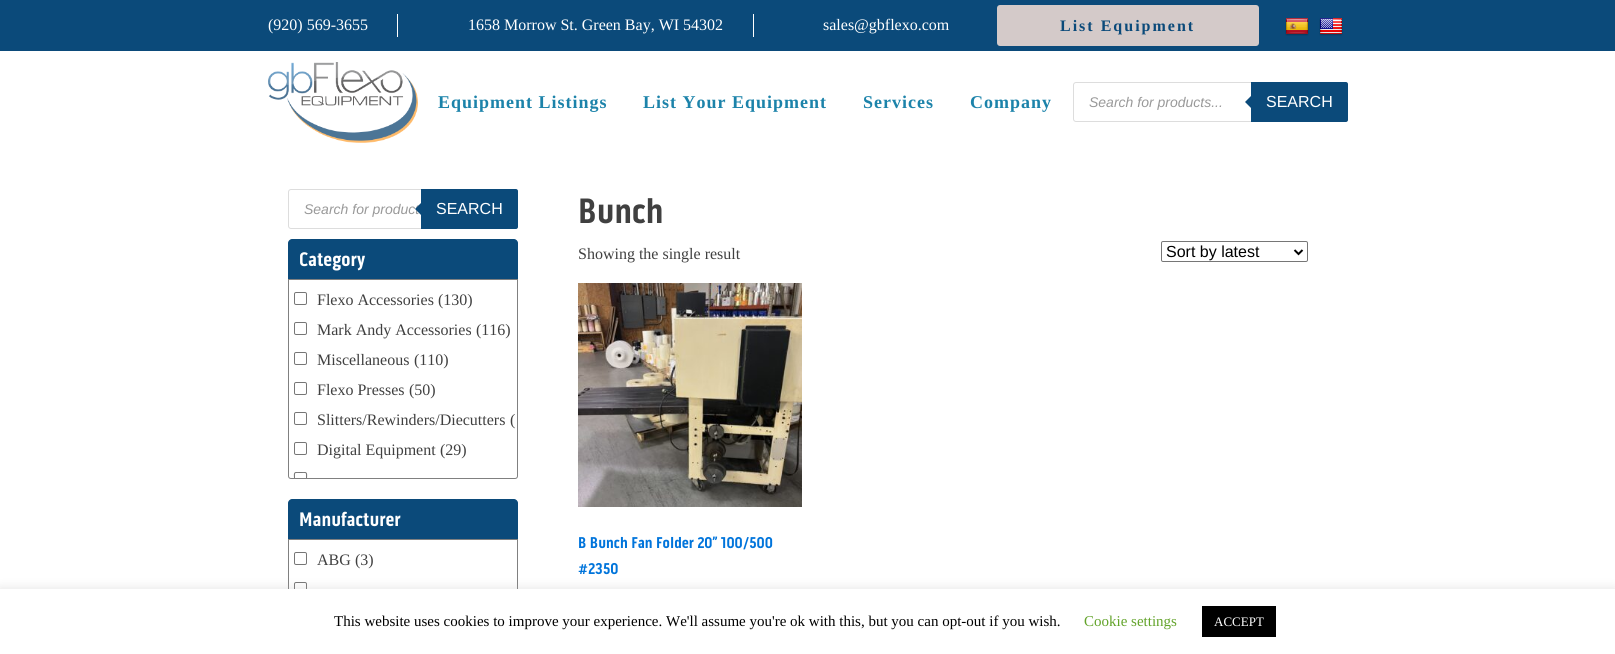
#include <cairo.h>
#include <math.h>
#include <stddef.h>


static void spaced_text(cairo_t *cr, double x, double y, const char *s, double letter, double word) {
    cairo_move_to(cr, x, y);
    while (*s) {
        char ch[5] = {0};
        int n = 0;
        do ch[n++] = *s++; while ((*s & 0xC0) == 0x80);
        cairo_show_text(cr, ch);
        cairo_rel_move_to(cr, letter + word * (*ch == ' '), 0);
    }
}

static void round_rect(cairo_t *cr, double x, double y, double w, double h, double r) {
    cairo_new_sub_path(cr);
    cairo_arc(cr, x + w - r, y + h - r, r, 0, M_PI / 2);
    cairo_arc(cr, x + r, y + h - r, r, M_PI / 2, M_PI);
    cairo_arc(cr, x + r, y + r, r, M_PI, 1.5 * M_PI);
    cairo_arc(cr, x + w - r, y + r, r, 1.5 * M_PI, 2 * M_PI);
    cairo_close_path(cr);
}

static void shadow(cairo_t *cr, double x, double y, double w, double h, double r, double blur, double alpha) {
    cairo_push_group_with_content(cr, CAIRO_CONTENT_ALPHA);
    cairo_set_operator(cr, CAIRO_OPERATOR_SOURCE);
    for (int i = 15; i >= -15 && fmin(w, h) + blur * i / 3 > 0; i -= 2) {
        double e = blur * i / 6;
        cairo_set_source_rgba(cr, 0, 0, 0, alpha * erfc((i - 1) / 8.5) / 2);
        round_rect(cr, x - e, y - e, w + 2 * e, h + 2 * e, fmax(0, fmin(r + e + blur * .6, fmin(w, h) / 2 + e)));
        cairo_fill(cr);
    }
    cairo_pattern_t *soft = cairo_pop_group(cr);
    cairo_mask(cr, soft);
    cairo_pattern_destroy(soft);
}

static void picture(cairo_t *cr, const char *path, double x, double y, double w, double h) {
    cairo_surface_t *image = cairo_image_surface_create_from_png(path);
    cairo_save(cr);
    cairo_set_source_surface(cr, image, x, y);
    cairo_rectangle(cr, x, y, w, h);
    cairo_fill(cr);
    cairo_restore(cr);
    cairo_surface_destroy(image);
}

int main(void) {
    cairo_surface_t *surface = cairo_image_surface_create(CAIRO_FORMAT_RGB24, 1615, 654);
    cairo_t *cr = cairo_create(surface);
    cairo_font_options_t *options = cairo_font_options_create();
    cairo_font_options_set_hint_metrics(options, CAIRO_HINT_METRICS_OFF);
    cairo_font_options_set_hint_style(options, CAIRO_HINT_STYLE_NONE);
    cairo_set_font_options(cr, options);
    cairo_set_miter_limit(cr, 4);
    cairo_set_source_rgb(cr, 1, 1, 1);
    cairo_paint(cr);
    cairo_set_source_rgb(cr, 0.043, 0.29, 0.478);
    cairo_rectangle(cr, 0, 0, 1615, 51);
    cairo_fill(cr);
    cairo_set_source_rgb(cr, 1, 1, 1);
    cairo_rectangle(cr, 397, 14, 1, 23);
    cairo_fill(cr);
    cairo_select_font_face(cr, "Liberation Serif", CAIRO_FONT_SLANT_NORMAL, CAIRO_FONT_WEIGHT_NORMAL);
    cairo_set_font_size(cr, 16);
    cairo_move_to(cr, 268, 30);
    cairo_show_text(cr, "(920) 569-3655");
    cairo_rectangle(cr, 753, 14, 1, 23);
    cairo_fill(cr);
    cairo_move_to(cr, 468, 30);
    cairo_show_text(cr, "1658 Morrow St. Green Bay, WI 54302");
    cairo_move_to(cr, 823, 30);
    cairo_show_text(cr, "sales@gbflexo.com");
    cairo_set_source_rgb(cr, 0.831, 0.792, 0.788);
    round_rect(cr, 997, 5, 262, 41, 3);
    cairo_fill(cr);
    cairo_select_font_face(cr, "Liberation Serif", CAIRO_FONT_SLANT_NORMAL, CAIRO_FONT_WEIGHT_BOLD);
    cairo_set_source_rgb(cr, 0.043, 0.29, 0.478);
    spaced_text(cr, 1060, 31, "List Equipment", 2, 0);
    picture(cr, "img1.png", 1285, 18, 24, 18);
    picture(cr, "img2.png", 1319, 18, 24, 18);
    picture(cr, "img3.png", 268, 62, 150, 81);
    cairo_set_font_size(cr, 18);
    cairo_set_source_rgb(cr, 0.11, 0.514, 0.667);
    spaced_text(cr, 438, 108, "Equipment Listings", 1, 0);
    spaced_text(cr, 643, 108, "List Your Equipment", 1, 0);
    spaced_text(cr, 863, 108, "Services", 1, 0);
    spaced_text(cr, 970, 108, "Company", 1, 0);
    round_rect(cr, 1073.5, 82.5, 274, 39, 2.5);
    cairo_set_source_rgb(cr, 0.867, 0.867, 0.867);
    cairo_set_line_width(cr, 1);
    cairo_stroke(cr);
    cairo_select_font_face(cr, "Liberation Sans", CAIRO_FONT_SLANT_ITALIC, CAIRO_FONT_WEIGHT_NORMAL);
    cairo_set_font_size(cr, 14);
    cairo_set_source_rgb(cr, 0.6, 0.6, 0.6);
    cairo_move_to(cr, 1089, 107);
    cairo_show_text(cr, "Search for products...");
    cairo_set_source_rgb(cr, 0.043, 0.29, 0.478);
    cairo_new_path(cr);
    cairo_move_to(cr, 1251, 82);
    cairo_line_to(cr, 1346, 82);
    cairo_curve_to(cr, 1347, 82, 1348, 83, 1348, 84);
    cairo_line_to(cr, 1348, 120);
    cairo_curve_to(cr, 1348, 121, 1347, 122, 1346, 122);
    cairo_line_to(cr, 1251, 122);
    cairo_close_path(cr);
    cairo_fill(cr);
    cairo_new_path(cr);
    cairo_move_to(cr, 1253, 94);
    cairo_line_to(cr, 1253, 110);
    cairo_line_to(cr, 1245, 102);
    cairo_close_path(cr);
    cairo_fill(cr);
    cairo_select_font_face(cr, "Liberation Sans", CAIRO_FONT_SLANT_NORMAL, CAIRO_FONT_WEIGHT_NORMAL);
    cairo_set_font_size(cr, 16);
    cairo_set_source_rgb(cr, 1, 1, 1);
    cairo_move_to(cr, 1266, 107);
    cairo_show_text(cr, "SEARCH");
    round_rect(cr, 288.5, 189.5, 229, 39, 2.5);
    cairo_set_source_rgb(cr, 0.867, 0.867, 0.867);
    cairo_stroke(cr);
    cairo_select_font_face(cr, "Liberation Sans", CAIRO_FONT_SLANT_ITALIC, CAIRO_FONT_WEIGHT_NORMAL);
    cairo_set_font_size(cr, 14);
    cairo_set_source_rgb(cr, 0.6, 0.6, 0.6);
    cairo_move_to(cr, 304, 214);
    cairo_show_text(cr, "Search for product");
    cairo_set_source_rgb(cr, 0.043, 0.29, 0.478);
    cairo_new_path(cr);
    cairo_move_to(cr, 421, 189);
    cairo_line_to(cr, 516, 189);
    cairo_curve_to(cr, 517, 189, 518, 190, 518, 191);
    cairo_line_to(cr, 518, 227);
    cairo_curve_to(cr, 518, 228, 517, 229, 516, 229);
    cairo_line_to(cr, 421, 229);
    cairo_close_path(cr);
    cairo_fill(cr);
    cairo_new_path(cr);
    cairo_move_to(cr, 423, 201);
    cairo_line_to(cr, 423, 217);
    cairo_line_to(cr, 415, 209);
    cairo_close_path(cr);
    cairo_fill(cr);
    cairo_select_font_face(cr, "Liberation Sans", CAIRO_FONT_SLANT_NORMAL, CAIRO_FONT_WEIGHT_NORMAL);
    cairo_set_font_size(cr, 16);
    cairo_set_source_rgb(cr, 1, 1, 1);
    cairo_move_to(cr, 436, 214);
    cairo_show_text(cr, "SEARCH");
    cairo_set_source_rgb(cr, 0.043, 0.29, 0.478);
    cairo_new_path(cr);
    cairo_move_to(cr, 292, 239);
    cairo_line_to(cr, 514, 239);
    cairo_curve_to(cr, 516, 239, 518, 241, 518, 243);
    cairo_line_to(cr, 518, 280);
    cairo_line_to(cr, 288, 280);
    cairo_line_to(cr, 288, 243);
    cairo_curve_to(cr, 288, 241, 290, 239, 292, 239);
    cairo_close_path(cr);
    cairo_fill(cr);
    cairo_select_font_face(cr, "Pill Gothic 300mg", CAIRO_FONT_SLANT_NORMAL, CAIRO_FONT_WEIGHT_BOLD);
    cairo_set_font_size(cr, 20);
    cairo_set_source_rgb(cr, 1, 1, 1);
    cairo_move_to(cr, 299, 266);
    cairo_show_text(cr, "Category");
    cairo_new_path(cr);
    cairo_move_to(cr, 288.5, 279.5);
    cairo_line_to(cr, 517.5, 279.5);
    cairo_line_to(cr, 517.5, 476);
    cairo_curve_to(cr, 517.5, 477.5, 516.5, 478.5, 515, 478.5);
    cairo_line_to(cr, 291, 478.5);
    cairo_curve_to(cr, 289.5, 478.5, 288.5, 477.5, 288.5, 476);
    cairo_close_path(cr);
    cairo_set_source_rgb(cr, 0.502, 0.502, 0.502);
    cairo_stroke(cr);
    round_rect(cr, 294.5, 292.5, 12, 12, 1.5);
    cairo_set_source_rgb(cr, 0.463, 0.463, 0.463);
    cairo_stroke(cr);
    cairo_select_font_face(cr, "Liberation Serif", CAIRO_FONT_SLANT_NORMAL, CAIRO_FONT_WEIGHT_NORMAL);
    cairo_set_font_size(cr, 16);
    cairo_set_source_rgb(cr, 0.251, 0.251, 0.251);
    cairo_move_to(cr, 317, 305);
    cairo_show_text(cr, "Flexo Accessories");
    cairo_move_to(cr, 438, 305);
    cairo_show_text(cr, "(130)");
    round_rect(cr, 294.5, 322.5, 12, 12, 1.5);
    cairo_set_source_rgb(cr, 0.463, 0.463, 0.463);
    cairo_stroke(cr);
    cairo_set_source_rgb(cr, 0.251, 0.251, 0.251);
    cairo_move_to(cr, 317, 335);
    cairo_show_text(cr, "Mark Andy Accessories");
    cairo_move_to(cr, 476, 335);
    cairo_show_text(cr, "(116)");
    round_rect(cr, 294.5, 352.5, 12, 12, 1.5);
    cairo_set_source_rgb(cr, 0.463, 0.463, 0.463);
    cairo_stroke(cr);
    cairo_set_source_rgb(cr, 0.251, 0.251, 0.251);
    cairo_move_to(cr, 317, 365);
    cairo_show_text(cr, "Miscellaneous");
    cairo_move_to(cr, 414, 365);
    cairo_show_text(cr, "(110)");
    round_rect(cr, 294.5, 382.5, 12, 12, 1.5);
    cairo_set_source_rgb(cr, 0.463, 0.463, 0.463);
    cairo_stroke(cr);
    cairo_set_source_rgb(cr, 0.251, 0.251, 0.251);
    cairo_move_to(cr, 317, 395);
    cairo_show_text(cr, "Flexo Presses");
    cairo_move_to(cr, 409, 395);
    cairo_show_text(cr, "(50)");
    round_rect(cr, 294.5, 412.5, 12, 12, 1.5);
    cairo_set_source_rgb(cr, 0.463, 0.463, 0.463);
    cairo_stroke(cr);
    cairo_set_source_rgb(cr, 0.251, 0.251, 0.251);
    cairo_move_to(cr, 317, 425);
    cairo_show_text(cr, "Slitters/Rewinders/Diecutters");
    cairo_move_to(cr, 510, 425);
    cairo_show_text(cr, "(");
    round_rect(cr, 294.5, 442.5, 12, 12, 1.5);
    cairo_set_source_rgb(cr, 0.463, 0.463, 0.463);
    cairo_stroke(cr);
    cairo_set_source_rgb(cr, 0.251, 0.251, 0.251);
    cairo_move_to(cr, 317, 455);
    cairo_show_text(cr, "Digital Equipment");
    cairo_move_to(cr, 440, 455);
    cairo_show_text(cr, "(29)");
    cairo_set_source_rgb(cr, 0.463, 0.463, 0.463);
    cairo_new_path(cr);
    cairo_move_to(cr, 296, 472);
    cairo_curve_to(cr, 293, 472, 294, 476.5, 294, 478);
    cairo_line_to(cr, 295, 478);
    cairo_curve_to(cr, 295, 472, 294, 473, 300.5, 473);
    cairo_curve_to(cr, 307, 473, 306, 472, 306, 478);
    cairo_line_to(cr, 307, 478);
    cairo_curve_to(cr, 307, 476.5, 308, 472, 305, 472);
    cairo_close_path(cr);
    cairo_fill(cr);
    cairo_set_source_rgb(cr, 0.043, 0.29, 0.478);
    cairo_new_path(cr);
    cairo_move_to(cr, 292, 499);
    cairo_line_to(cr, 514, 499);
    cairo_curve_to(cr, 516, 499, 518, 501, 518, 503);
    cairo_line_to(cr, 518, 540);
    cairo_line_to(cr, 288, 540);
    cairo_line_to(cr, 288, 503);
    cairo_curve_to(cr, 288, 501, 290, 499, 292, 499);
    cairo_close_path(cr);
    cairo_fill(cr);
    cairo_select_font_face(cr, "Pill Gothic 300mg", CAIRO_FONT_SLANT_NORMAL, CAIRO_FONT_WEIGHT_BOLD);
    cairo_set_font_size(cr, 20);
    cairo_set_source_rgb(cr, 1, 1, 1);
    cairo_move_to(cr, 299, 526);
    cairo_show_text(cr, "Manufacturer");
    cairo_rectangle(cr, 288.5, 539.5, 229, 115);
    cairo_set_source_rgb(cr, 0.502, 0.502, 0.502);
    cairo_stroke(cr);
    round_rect(cr, 294.5, 552.5, 12, 12, 1.5);
    cairo_set_source_rgb(cr, 0.463, 0.463, 0.463);
    cairo_stroke(cr);
    cairo_select_font_face(cr, "Liberation Serif", CAIRO_FONT_SLANT_NORMAL, CAIRO_FONT_WEIGHT_NORMAL);
    cairo_set_font_size(cr, 16);
    cairo_set_source_rgb(cr, 0.251, 0.251, 0.251);
    cairo_move_to(cr, 317, 565);
    cairo_show_text(cr, "ABG");
    cairo_move_to(cr, 355, 565);
    cairo_show_text(cr, "(3)");
    round_rect(cr, 294.5, 582.5, 12, 12, 1.5);
    cairo_set_source_rgb(cr, 0.463, 0.463, 0.463);
    cairo_stroke(cr);
    cairo_select_font_face(cr, "Pill Gothic 300mg", CAIRO_FONT_SLANT_NORMAL, CAIRO_FONT_WEIGHT_BOLD);
    cairo_set_font_size(cr, 36);
    cairo_set_source_rgb(cr, 0.251, 0.251, 0.251);
    cairo_move_to(cr, 578, 223);
    cairo_show_text(cr, "Bunch");
    cairo_select_font_face(cr, "Liberation Serif", CAIRO_FONT_SLANT_NORMAL, CAIRO_FONT_WEIGHT_NORMAL);
    cairo_set_font_size(cr, 16);
    cairo_move_to(cr, 578, 259);
    cairo_show_text(cr, "Showing the single result");
    round_rect(cr, 1161.5, 241.5, 146, 20, 1.5);
    cairo_set_source_rgb(cr, 0.463, 0.463, 0.463);
    cairo_stroke(cr);
    cairo_new_path(cr);
    cairo_move_to(cr, 1294.5, 250);
    cairo_line_to(cr, 1298.5, 254);
    cairo_line_to(cr, 1302.5, 250);
    cairo_set_source_rgb(cr, 0, 0, 0);
    cairo_set_line_width(cr, 2);
    cairo_stroke(cr);
    cairo_select_font_face(cr, "Liberation Sans", CAIRO_FONT_SLANT_NORMAL, CAIRO_FONT_WEIGHT_NORMAL);
    cairo_move_to(cr, 1166, 257);
    cairo_show_text(cr, "Sort by latest");
    picture(cr, "img4.png", 578, 283, 224, 224);
    cairo_select_font_face(cr, "Pill Gothic 300mg", CAIRO_FONT_SLANT_NORMAL, CAIRO_FONT_WEIGHT_BOLD);
    cairo_set_source_rgb(cr, 0, 0.455, 0.859);
    cairo_move_to(cr, 578, 548);
    cairo_show_text(cr, "B Bunch Fan Folder 20” 100/500");
    cairo_move_to(cr, 578, 574);
    cairo_show_text(cr, "#2350");
    cairo_set_source_rgb(cr, 0.675, 0.671, 0.671);
    shadow(cr, 0, 588, 1615, 65, 0, 5, 0.3);
    cairo_set_source_rgb(cr, 1, 1, 1);
    cairo_rectangle(cr, 0, 589, 1615, 65);
    cairo_fill(cr);
    cairo_select_font_face(cr, "Liberation Serif", CAIRO_FONT_SLANT_NORMAL, CAIRO_FONT_WEIGHT_NORMAL);
    cairo_set_font_size(cr, 15);
    cairo_set_source_rgb(cr, 0, 0, 0);
    cairo_move_to(cr, 334, 626);
    cairo_show_text(cr, "This website uses cookies to improve your experience. We'll assume you're ok with this, but you can opt-out if you wish.");
    cairo_set_source_rgb(cr, 0.384, 0.639, 0.161);
    cairo_move_to(cr, 1084, 626);
    cairo_show_text(cr, "Cookie settings");
    cairo_set_source_rgb(cr, 0, 0, 0);
    cairo_rectangle(cr, 1202, 606, 74, 31);
    cairo_fill(cr);
    cairo_set_font_size(cr, 13);
    cairo_set_source_rgb(cr, 1, 1, 1);
    cairo_move_to(cr, 1214, 626);
    cairo_show_text(cr, "ACCEPT");
    cairo_surface_write_to_png(surface, "page.png");
    cairo_font_options_destroy(options);
    cairo_destroy(cr);
    cairo_surface_destroy(surface);
    return 0;
}
